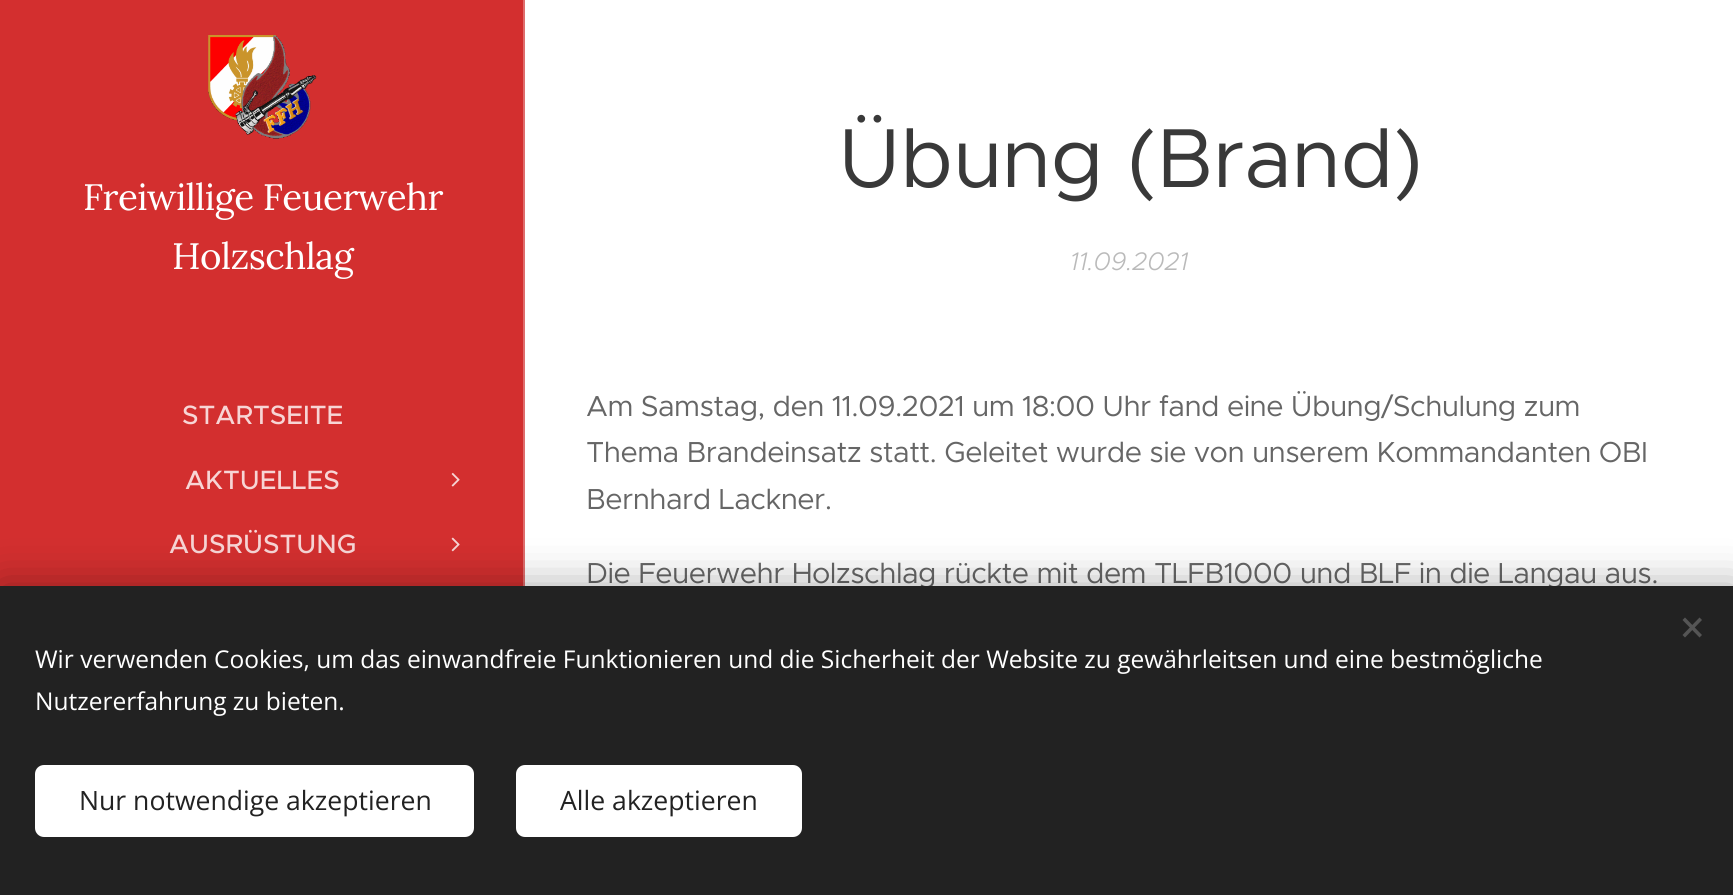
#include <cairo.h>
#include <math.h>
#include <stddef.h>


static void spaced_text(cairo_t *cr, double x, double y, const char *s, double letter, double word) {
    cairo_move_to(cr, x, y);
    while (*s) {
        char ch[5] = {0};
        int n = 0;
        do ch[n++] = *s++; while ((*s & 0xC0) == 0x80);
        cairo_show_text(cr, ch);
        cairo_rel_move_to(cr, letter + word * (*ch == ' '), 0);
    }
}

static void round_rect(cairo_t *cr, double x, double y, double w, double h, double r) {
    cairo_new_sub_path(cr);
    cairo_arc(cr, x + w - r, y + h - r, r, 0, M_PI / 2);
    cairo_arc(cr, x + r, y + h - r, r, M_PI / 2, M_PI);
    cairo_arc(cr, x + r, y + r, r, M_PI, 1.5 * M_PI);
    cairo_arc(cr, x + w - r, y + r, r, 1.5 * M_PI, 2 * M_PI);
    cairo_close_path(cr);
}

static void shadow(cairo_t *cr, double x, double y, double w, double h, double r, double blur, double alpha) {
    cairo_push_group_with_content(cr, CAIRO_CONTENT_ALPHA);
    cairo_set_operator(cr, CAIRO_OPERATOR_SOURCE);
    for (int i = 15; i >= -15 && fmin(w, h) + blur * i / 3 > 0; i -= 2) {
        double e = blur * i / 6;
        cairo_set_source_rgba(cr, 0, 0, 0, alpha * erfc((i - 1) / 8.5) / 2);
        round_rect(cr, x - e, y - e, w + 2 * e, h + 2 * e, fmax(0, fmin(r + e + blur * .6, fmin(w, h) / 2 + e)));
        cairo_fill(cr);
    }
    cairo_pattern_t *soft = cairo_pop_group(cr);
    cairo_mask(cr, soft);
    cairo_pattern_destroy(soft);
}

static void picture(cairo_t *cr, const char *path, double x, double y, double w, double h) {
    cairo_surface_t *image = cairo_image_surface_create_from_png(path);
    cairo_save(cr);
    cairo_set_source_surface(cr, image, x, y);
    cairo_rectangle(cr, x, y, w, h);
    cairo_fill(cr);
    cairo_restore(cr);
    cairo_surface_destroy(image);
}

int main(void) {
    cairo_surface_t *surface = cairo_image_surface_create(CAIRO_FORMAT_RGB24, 1733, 895);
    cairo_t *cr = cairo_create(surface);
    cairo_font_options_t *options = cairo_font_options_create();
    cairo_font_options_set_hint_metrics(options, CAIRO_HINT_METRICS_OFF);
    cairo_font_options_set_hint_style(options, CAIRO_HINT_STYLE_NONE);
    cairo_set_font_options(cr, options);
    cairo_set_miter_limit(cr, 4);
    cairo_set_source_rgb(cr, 1, 1, 1);
    cairo_paint(cr);
    cairo_set_source_rgb(cr, 0.827, 0.184, 0.184);
    cairo_rectangle(cr, 0, 0, 523, 586);
    cairo_fill(cr);
    picture(cr, "img1.png", 208, 35, 109, 104);
    cairo_select_font_face(cr, "Lora", CAIRO_FONT_SLANT_NORMAL, CAIRO_FONT_WEIGHT_NORMAL);
    cairo_set_font_size(cr, 36.75);
    cairo_set_source_rgb(cr, 1, 1, 1);
    spaced_text(cr, 83, 210, "Freiwillige Feuerwehr", -0.55, 0);
    spaced_text(cr, 172, 269, "Holzschlag", -0.55, 0);
    cairo_select_font_face(cr, "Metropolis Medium", CAIRO_FONT_SLANT_NORMAL, CAIRO_FONT_WEIGHT_NORMAL);
    cairo_set_font_size(cr, 26.6);
    cairo_set_source_rgb(cr, 0.965, 0.835, 0.835);
    cairo_move_to(cr, 182, 424);
    cairo_show_text(cr, "STARTSEITE");
    cairo_move_to(cr, 185, 489);
    cairo_show_text(cr, "AKTUELLES");
    picture(cr, "img2.png", 451, 472, 9, 15);
    cairo_move_to(cr, 169, 553);
    cairo_show_text(cr, "AUSRÜSTUNG");
    picture(cr, "img3.png", 451, 537, 9, 15);
    cairo_set_source_rgb(cr, 0.878, 0.427, 0.427);
    cairo_rectangle(cr, 523, 0, 2, 586);
    cairo_fill(cr);
    cairo_select_font_face(cr, "Metropolis", CAIRO_FONT_SLANT_NORMAL, CAIRO_FONT_WEIGHT_NORMAL);
    cairo_set_font_size(cr, 84);
    cairo_set_source_rgb(cr, 0.224, 0.224, 0.224);
    spaced_text(cr, 838, 187, "Übung (Brand)", -0.8, 0);
    cairo_select_font_face(cr, "Metropolis Light", CAIRO_FONT_SLANT_ITALIC, CAIRO_FONT_WEIGHT_NORMAL);
    cairo_set_font_size(cr, 25.5);
    cairo_set_source_rgb(cr, 0.729, 0.729, 0.729);
    cairo_move_to(cr, 1070, 270);
    cairo_show_text(cr, "11.09.2021");
    cairo_select_font_face(cr, "Metropolis", CAIRO_FONT_SLANT_NORMAL, CAIRO_FONT_WEIGHT_NORMAL);
    cairo_set_font_size(cr, 29.05);
    cairo_set_source_rgb(cr, 0.4, 0.4, 0.4);
    spaced_text(cr, 586, 416, "Am Samstag, den 11.09.2021 um 18:00 Uhr fand eine Übung/Schulung zum", -0.55, 0);
    spaced_text(cr, 586, 462, "Thema Brandeinsatz statt. Geleitet wurde sie von unserem Kommandanten OBI", -0.55, 0);
    spaced_text(cr, 586, 509, "Bernhard Lackner.", -0.55, 0);
    spaced_text(cr, 586, 583, "Die Feuerwehr Holzschlag rückte mit dem TLFB1000 und BLF in die Langau aus.", -0.55, 0);
    cairo_set_source_rgb(cr, 0, 0, 0);
    shadow(cr, 0, 586, 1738, 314, 0, 22, 0.33);
    cairo_set_source_rgb(cr, 0.133, 0.133, 0.133);
    cairo_rectangle(cr, 0, 586, 1733, 309);
    cairo_fill(cr);
    cairo_set_source_rgb(cr, 0.333, 0.333, 0.333);
    cairo_new_path(cr);
    cairo_move_to(cr, 1682.5, 635);
    cairo_line_to(cr, 1699.5, 617.5);
    cairo_line_to(cr, 1702, 620);
    cairo_line_to(cr, 1685, 637.5);
    cairo_close_path(cr);
    cairo_fill(cr);
    cairo_new_path(cr);
    cairo_move_to(cr, 1685, 617.5);
    cairo_line_to(cr, 1702, 635);
    cairo_line_to(cr, 1699.5, 637.5);
    cairo_line_to(cr, 1682.5, 620);
    cairo_close_path(cr);
    cairo_fill(cr);
    cairo_select_font_face(cr, "Open Sans", CAIRO_FONT_SLANT_NORMAL, CAIRO_FONT_WEIGHT_NORMAL);
    cairo_set_font_size(cr, 24.5);
    cairo_set_source_rgb(cr, 1, 1, 1);
    cairo_move_to(cr, 35, 668);
    cairo_show_text(cr, "Wir verwenden Cookies, um das einwandfreie Funktionieren und die Sicherheit der Website zu gewährleitsen und eine bestmögliche");
    cairo_move_to(cr, 35, 710);
    cairo_show_text(cr, "Nutzererfahrung zu bieten.");
    round_rect(cr, 35, 765, 439, 72, 9);
    cairo_fill(cr);
    cairo_set_font_size(cr, 26.6);
    cairo_set_source_rgb(cr, 0.133, 0.133, 0.133);
    cairo_move_to(cr, 79, 810);
    cairo_show_text(cr, "Nur notwendige akzeptieren");
    cairo_set_source_rgb(cr, 1, 1, 1);
    round_rect(cr, 516, 765, 286, 72, 9);
    cairo_fill(cr);
    cairo_set_source_rgb(cr, 0.133, 0.133, 0.133);
    cairo_move_to(cr, 560, 810);
    cairo_show_text(cr, "Alle akzeptieren");
    cairo_surface_write_to_png(surface, "page.png");
    cairo_font_options_destroy(options);
    cairo_destroy(cr);
    cairo_surface_destroy(surface);
    return 0;
}
